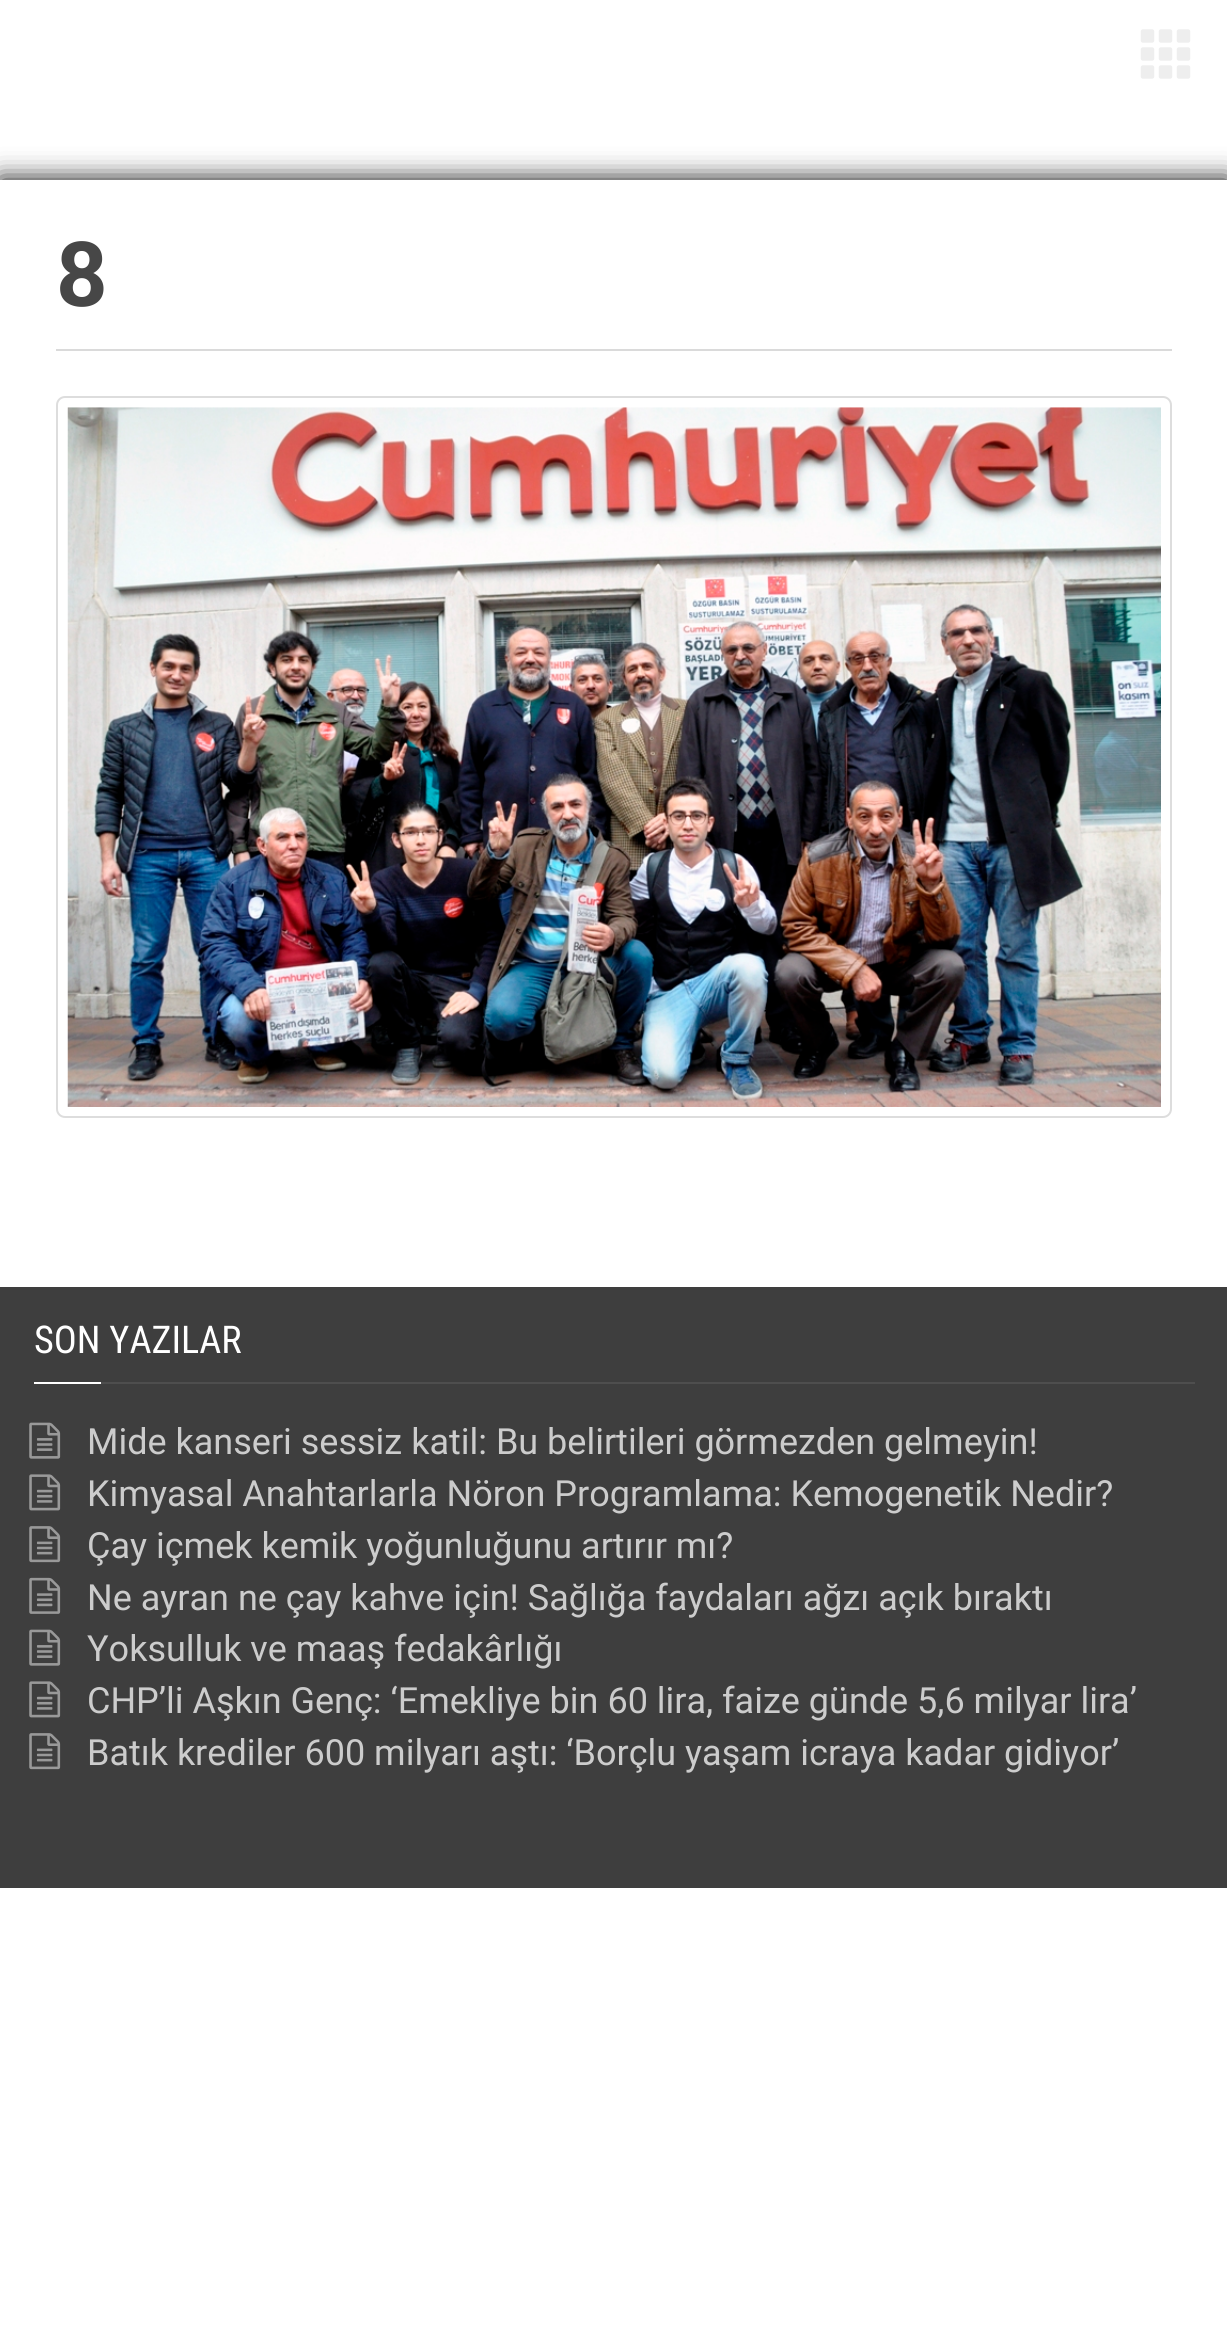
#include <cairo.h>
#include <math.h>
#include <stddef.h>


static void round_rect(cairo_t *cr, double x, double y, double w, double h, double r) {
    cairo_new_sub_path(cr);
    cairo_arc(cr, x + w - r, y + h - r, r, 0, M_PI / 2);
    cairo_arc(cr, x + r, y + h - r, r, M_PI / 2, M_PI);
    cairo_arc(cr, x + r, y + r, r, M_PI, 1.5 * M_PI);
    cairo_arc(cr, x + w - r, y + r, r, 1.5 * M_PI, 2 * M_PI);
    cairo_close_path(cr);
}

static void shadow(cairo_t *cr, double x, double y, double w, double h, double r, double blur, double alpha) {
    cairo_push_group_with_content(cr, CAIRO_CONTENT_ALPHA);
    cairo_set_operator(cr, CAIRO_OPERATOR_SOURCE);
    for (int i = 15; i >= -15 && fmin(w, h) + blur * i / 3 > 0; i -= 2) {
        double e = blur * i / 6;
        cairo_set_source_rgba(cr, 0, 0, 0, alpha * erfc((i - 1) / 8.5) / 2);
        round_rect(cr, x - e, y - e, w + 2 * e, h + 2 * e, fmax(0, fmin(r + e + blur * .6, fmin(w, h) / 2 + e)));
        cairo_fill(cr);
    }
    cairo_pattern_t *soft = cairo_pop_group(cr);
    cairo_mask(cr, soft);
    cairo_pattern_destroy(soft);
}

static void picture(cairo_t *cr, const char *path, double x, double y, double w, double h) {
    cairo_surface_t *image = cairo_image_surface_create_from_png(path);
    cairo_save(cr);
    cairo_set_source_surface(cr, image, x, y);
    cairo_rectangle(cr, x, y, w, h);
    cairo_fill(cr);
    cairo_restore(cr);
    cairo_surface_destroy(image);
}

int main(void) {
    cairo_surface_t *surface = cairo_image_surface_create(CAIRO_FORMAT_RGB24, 1227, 2351);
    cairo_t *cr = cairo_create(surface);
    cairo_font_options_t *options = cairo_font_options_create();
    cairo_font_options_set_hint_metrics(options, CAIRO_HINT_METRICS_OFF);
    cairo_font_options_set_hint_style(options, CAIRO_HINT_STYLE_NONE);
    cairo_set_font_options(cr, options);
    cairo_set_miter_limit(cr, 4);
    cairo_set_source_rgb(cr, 1, 1, 1);
    cairo_paint(cr);
    picture(cr, "img1.png", 1140, 29, 51, 50);
    cairo_save(cr);
    cairo_rectangle(cr, 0, 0, 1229, 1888);
    cairo_clip(cr);
    cairo_set_source_rgb(cr, 0.039, 0.039, 0.039);
    shadow(cr, 0, 180, 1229, 1708, 0, 13.5, 1);
    cairo_restore(cr);
    cairo_set_source_rgb(cr, 1, 1, 1);
    cairo_rectangle(cr, 0, 180, 1227, 1107);
    cairo_fill(cr);
    cairo_set_source_rgb(cr, 0.855, 0.855, 0.855);
    cairo_rectangle(cr, 56, 349, 1116, 2);
    cairo_fill(cr);
    cairo_select_font_face(cr, "Roboto", CAIRO_FONT_SLANT_NORMAL, CAIRO_FONT_WEIGHT_BOLD);
    cairo_set_font_size(cr, 90);
    cairo_set_source_rgb(cr, 0.278, 0.278, 0.278);
    cairo_move_to(cr, 56, 306);
    cairo_show_text(cr, "8");
    round_rect(cr, 57, 397, 1114, 720, 8);
    cairo_set_source_rgb(cr, 0.867, 0.867, 0.867);
    cairo_stroke(cr);
    picture(cr, "img2.png", 67, 407, 1094, 700);
    cairo_set_source_rgb(cr, 0.243, 0.243, 0.243);
    cairo_rectangle(cr, 0, 1287, 1227, 601);
    cairo_fill(cr);
    cairo_set_source_rgb(cr, 0.306, 0.306, 0.306);
    cairo_rectangle(cr, 101, 1382, 1094, 2);
    cairo_fill(cr);
    cairo_select_font_face(cr, "Roboto Condensed", CAIRO_FONT_SLANT_NORMAL, CAIRO_FONT_WEIGHT_NORMAL);
    cairo_set_font_size(cr, 38.25);
    cairo_set_source_rgb(cr, 1, 1, 1);
    cairo_move_to(cr, 34, 1353);
    cairo_show_text(cr, "SON YAZILAR");
    cairo_rectangle(cr, 34, 1382, 67, 2);
    cairo_fill(cr);
    picture(cr, "img3.png", 29, 1422, 32, 37);
    cairo_select_font_face(cr, "Roboto", CAIRO_FONT_SLANT_NORMAL, CAIRO_FONT_WEIGHT_NORMAL);
    cairo_set_font_size(cr, 36);
    cairo_set_source_rgb(cr, 0.8, 0.8, 0.8);
    cairo_move_to(cr, 87, 1454);
    cairo_show_text(cr, "Mide kanseri sessiz katil: Bu belirtileri görmezden gelmeyin!");
    picture(cr, "img4.png", 29, 1474, 32, 37);
    cairo_move_to(cr, 87, 1506);
    cairo_show_text(cr, "Kimyasal Anahtarlarla Nöron Programlama: Kemogenetik Nedir?");
    picture(cr, "img5.png", 29, 1526, 32, 37);
    cairo_move_to(cr, 87, 1558);
    cairo_show_text(cr, "Çay içmek kemik yoğunluğunu artırır mı?");
    picture(cr, "img6.png", 29, 1577, 32, 37);
    cairo_move_to(cr, 87, 1610);
    cairo_show_text(cr, "Ne ayran ne çay kahve için! Sağlığa faydaları ağzı açık bıraktı");
    picture(cr, "img3.png", 29, 1629, 32, 37);
    cairo_move_to(cr, 87, 1661);
    cairo_show_text(cr, "Yoksulluk ve maaş fedakârlığı");
    picture(cr, "img4.png", 29, 1681, 32, 37);
    cairo_move_to(cr, 87, 1713);
    cairo_show_text(cr, "CHP’li Aşkın Genç: ‘Emekliye bin 60 lira, faize günde 5,6 milyar lira’");
    picture(cr, "img5.png", 29, 1733, 32, 37);
    cairo_move_to(cr, 87, 1765);
    cairo_show_text(cr, "Batık krediler 600 milyarı aştı: ‘Borçlu yaşam icraya kadar gidiyor’");
    cairo_surface_write_to_png(surface, "page.png");
    cairo_font_options_destroy(options);
    cairo_destroy(cr);
    cairo_surface_destroy(surface);
    return 0;
}
